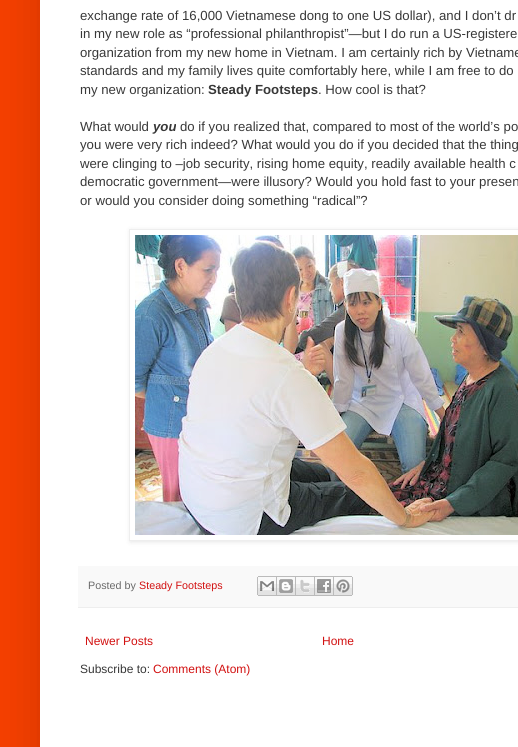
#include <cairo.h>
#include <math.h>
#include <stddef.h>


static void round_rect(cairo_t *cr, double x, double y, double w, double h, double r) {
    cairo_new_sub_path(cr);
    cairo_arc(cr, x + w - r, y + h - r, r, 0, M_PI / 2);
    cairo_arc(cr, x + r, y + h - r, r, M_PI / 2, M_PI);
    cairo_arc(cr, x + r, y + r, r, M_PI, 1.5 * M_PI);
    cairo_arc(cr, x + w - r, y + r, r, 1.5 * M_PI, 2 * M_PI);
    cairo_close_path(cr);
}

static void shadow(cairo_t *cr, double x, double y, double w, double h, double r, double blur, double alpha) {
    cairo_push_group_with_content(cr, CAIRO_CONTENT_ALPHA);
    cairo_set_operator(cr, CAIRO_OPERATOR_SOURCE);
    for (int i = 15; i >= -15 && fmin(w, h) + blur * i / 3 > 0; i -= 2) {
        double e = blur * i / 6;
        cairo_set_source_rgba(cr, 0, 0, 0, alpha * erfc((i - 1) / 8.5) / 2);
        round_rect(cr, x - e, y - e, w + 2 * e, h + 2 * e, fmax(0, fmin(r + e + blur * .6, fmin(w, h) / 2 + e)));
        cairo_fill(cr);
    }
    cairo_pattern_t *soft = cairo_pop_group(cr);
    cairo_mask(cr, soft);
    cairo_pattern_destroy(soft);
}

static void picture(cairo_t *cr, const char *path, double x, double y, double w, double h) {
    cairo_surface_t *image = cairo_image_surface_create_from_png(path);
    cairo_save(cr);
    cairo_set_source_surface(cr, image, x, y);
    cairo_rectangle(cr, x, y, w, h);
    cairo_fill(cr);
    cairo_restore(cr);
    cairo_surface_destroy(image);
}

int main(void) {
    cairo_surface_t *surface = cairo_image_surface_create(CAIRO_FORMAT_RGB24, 518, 747);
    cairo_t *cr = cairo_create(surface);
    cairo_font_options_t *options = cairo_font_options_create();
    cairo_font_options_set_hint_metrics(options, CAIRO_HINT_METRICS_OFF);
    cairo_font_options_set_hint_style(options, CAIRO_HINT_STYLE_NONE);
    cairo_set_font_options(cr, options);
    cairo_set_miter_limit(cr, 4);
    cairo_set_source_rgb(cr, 0.957, 0.247, 0);
    cairo_paint(cr);
    cairo_set_source_rgb(cr, 0, 0, 0);
    shadow(cr, 40, -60, 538, 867, 0, 20, 0.15);
    cairo_set_source_rgb(cr, 1, 1, 1);
    cairo_rectangle(cr, 40, 0, 478, 747);
    cairo_fill(cr);
    cairo_select_font_face(cr, "Liberation Sans", CAIRO_FONT_SLANT_NORMAL, CAIRO_FONT_WEIGHT_NORMAL);
    cairo_set_font_size(cr, 13.2);
    cairo_set_source_rgb(cr, 0.22, 0.22, 0.22);
    cairo_move_to(cr, 80, 20);
    cairo_show_text(cr, "exchange rate of 16,000 Vietnamese dong to one US");
    cairo_move_to(cr, 395, 20);
    cairo_show_text(cr, "dollar), and I don’t dr");
    cairo_move_to(cr, 80, 38);
    cairo_show_text(cr, "in my new role as “professional philanthropist”—but I do run a US-registere");
    cairo_move_to(cr, 80, 57);
    cairo_show_text(cr, "organization from my new home in Vietnam. I am certainly rich by Vietname");
    cairo_move_to(cr, 80, 75);
    cairo_show_text(cr, "standards and my family lives quite comfortably here, while I am free to do");
    cairo_move_to(cr, 80, 94);
    cairo_show_text(cr, "my new organization:");
    cairo_select_font_face(cr, "Liberation Sans", CAIRO_FONT_SLANT_NORMAL, CAIRO_FONT_WEIGHT_BOLD);
    cairo_move_to(cr, 208, 94);
    cairo_show_text(cr, "Steady Footsteps");
    cairo_select_font_face(cr, "Liberation Sans", CAIRO_FONT_SLANT_NORMAL, CAIRO_FONT_WEIGHT_NORMAL);
    cairo_move_to(cr, 318, 94);
    cairo_show_text(cr, ". How cool is that?");
    cairo_move_to(cr, 80, 131);
    cairo_show_text(cr, "What would");
    cairo_select_font_face(cr, "Liberation Sans", CAIRO_FONT_SLANT_ITALIC, CAIRO_FONT_WEIGHT_BOLD);
    cairo_move_to(cr, 153, 131);
    cairo_show_text(cr, "you");
    cairo_select_font_face(cr, "Liberation Sans", CAIRO_FONT_SLANT_NORMAL, CAIRO_FONT_WEIGHT_NORMAL);
    cairo_move_to(cr, 180, 131);
    cairo_show_text(cr, "do if you realized that, compared to most of the world’s po");
    cairo_move_to(cr, 80, 149);
    cairo_show_text(cr, "you were very rich indeed? What would you do if you decided that the thing");
    cairo_move_to(cr, 80, 168);
    cairo_show_text(cr, "were clinging to –job security, rising home equity, readily available health c");
    cairo_move_to(cr, 80, 186);
    cairo_show_text(cr, "democratic government—were illusory? Would you hold fast to your presen");
    cairo_move_to(cr, 80, 205);
    cairo_show_text(cr, "or would you consider doing something “radical”?");
    cairo_save(cr);
    cairo_set_fill_rule(cr, CAIRO_FILL_RULE_EVEN_ODD);
    cairo_new_path(cr);
    cairo_move_to(cr, 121, 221);
    cairo_line_to(cr, 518, 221);
    cairo_line_to(cr, 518, 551);
    cairo_line_to(cr, 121, 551);
    cairo_close_path(cr);
    cairo_move_to(cr, 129, 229);
    cairo_line_to(cr, 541, 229);
    cairo_line_to(cr, 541, 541);
    cairo_line_to(cr, 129, 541);
    cairo_close_path(cr);
    cairo_clip(cr);
    cairo_set_source_rgb(cr, 0, 0, 0);
    shadow(cr, 130, 230, 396, 312, 0, 2.5, 0.1);
    cairo_restore(cr);
    cairo_rectangle(cr, 129.5, 229.5, 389, 311);
    cairo_set_source_rgb(cr, 0.933, 0.933, 0.933);
    cairo_set_line_width(cr, 1);
    cairo_stroke(cr);
    picture(cr, "img1.png", 135, 235, 383, 300);
    cairo_set_source_rgb(cr, 0.976, 0.976, 0.976);
    cairo_rectangle(cr, 78, 566, 440, 41);
    cairo_fill(cr);
    cairo_set_source_rgb(cr, 0.933, 0.933, 0.933);
    cairo_rectangle(cr, 78, 607, 440, 1);
    cairo_fill(cr);
    cairo_set_font_size(cr, 10.75);
    cairo_set_source_rgb(cr, 0.416, 0.416, 0.416);
    cairo_move_to(cr, 88, 589);
    cairo_show_text(cr, "Posted by");
    cairo_set_source_rgb(cr, 0.824, 0.067, 0.067);
    cairo_move_to(cr, 139, 589);
    cairo_show_text(cr, "Steady Footsteps");
    picture(cr, "img2.png", 257, 576, 20, 20);
    picture(cr, "img3.png", 277, 576, 19, 20);
    picture(cr, "img4.png", 296, 576, 19, 20);
    picture(cr, "img5.png", 315, 576, 19, 20);
    picture(cr, "img6.png", 334, 576, 19, 20);
    cairo_set_font_size(cr, 12);
    cairo_move_to(cr, 85, 645);
    cairo_show_text(cr, "Newer Posts");
    cairo_move_to(cr, 322, 645);
    cairo_show_text(cr, "Home");
    cairo_set_source_rgb(cr, 0.22, 0.22, 0.22);
    cairo_move_to(cr, 80, 673);
    cairo_show_text(cr, "Subscribe to:");
    cairo_set_source_rgb(cr, 0.824, 0.067, 0.067);
    cairo_move_to(cr, 153, 673);
    cairo_show_text(cr, "Comments (Atom)");
    cairo_surface_write_to_png(surface, "page.png");
    cairo_font_options_destroy(options);
    cairo_destroy(cr);
    cairo_surface_destroy(surface);
    return 0;
}
